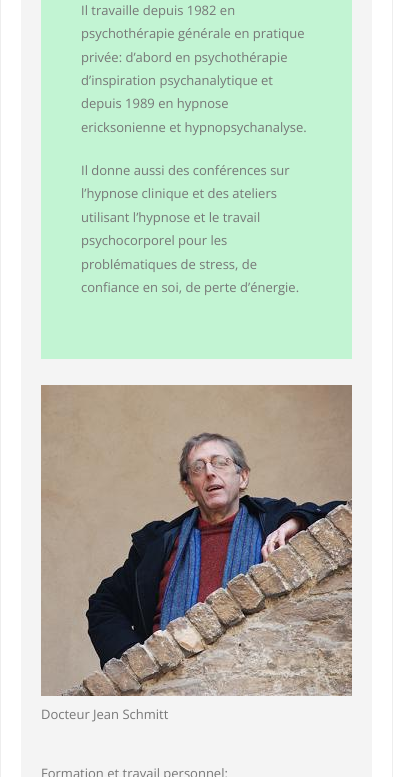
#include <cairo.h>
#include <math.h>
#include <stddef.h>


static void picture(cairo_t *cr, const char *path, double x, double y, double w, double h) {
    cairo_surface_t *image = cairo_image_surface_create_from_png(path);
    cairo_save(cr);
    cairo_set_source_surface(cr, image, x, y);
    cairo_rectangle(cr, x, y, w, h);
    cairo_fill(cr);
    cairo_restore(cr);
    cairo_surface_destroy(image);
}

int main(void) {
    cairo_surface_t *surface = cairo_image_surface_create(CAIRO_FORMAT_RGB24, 393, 777);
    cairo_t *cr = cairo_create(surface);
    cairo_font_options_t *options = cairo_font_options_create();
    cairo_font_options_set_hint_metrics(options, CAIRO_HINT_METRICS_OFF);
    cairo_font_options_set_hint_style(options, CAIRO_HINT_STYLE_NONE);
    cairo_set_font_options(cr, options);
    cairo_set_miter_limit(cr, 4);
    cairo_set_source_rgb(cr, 1, 1, 1);
    cairo_paint(cr);
    cairo_rectangle(cr, 0.5, -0.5, 392, 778);
    cairo_set_source_rgb(cr, 0.933, 0.933, 0.933);
    cairo_set_line_width(cr, 1);
    cairo_stroke(cr);
    cairo_set_source_rgb(cr, 0.957, 0.957, 0.957);
    cairo_rectangle(cr, 21, 0, 351, 777);
    cairo_fill(cr);
    cairo_set_source_rgb(cr, 0.761, 0.957, 0.827);
    cairo_rectangle(cr, 41, 0, 311, 359);
    cairo_fill(cr);
    cairo_select_font_face(cr, "Open Sans", CAIRO_FONT_SLANT_NORMAL, CAIRO_FONT_WEIGHT_NORMAL);
    cairo_set_font_size(cr, 13);
    cairo_set_source_rgb(cr, 0.467, 0.467, 0.467);
    cairo_move_to(cr, 81, 15);
    cairo_show_text(cr, "Il travaille depuis 1982 en");
    cairo_move_to(cr, 81, 38);
    cairo_show_text(cr, "psychothérapie générale en pratique");
    cairo_move_to(cr, 81, 62);
    cairo_show_text(cr, "privée: d’abord en psychothérapie");
    cairo_move_to(cr, 81, 85);
    cairo_show_text(cr, "d’inspiration psychanalytique et");
    cairo_move_to(cr, 81, 108);
    cairo_show_text(cr, "depuis 1989 en hypnose");
    cairo_move_to(cr, 81, 132);
    cairo_show_text(cr, "ericksonienne et hypnopsychanalyse.");
    cairo_move_to(cr, 81, 175);
    cairo_show_text(cr, "Il donne aussi des conférences sur");
    cairo_move_to(cr, 81, 198);
    cairo_show_text(cr, "l’hypnose clinique et des ateliers");
    cairo_move_to(cr, 81, 222);
    cairo_show_text(cr, "utilisant l’hypnose et le travail");
    cairo_move_to(cr, 81, 245);
    cairo_show_text(cr, "psychocorporel pour les");
    cairo_move_to(cr, 81, 269);
    cairo_show_text(cr, "problématiques de stress, de");
    cairo_move_to(cr, 81, 292);
    cairo_show_text(cr, "confiance en soi, de perte d’énergie.");
    picture(cr, "img1.png", 41, 385, 311, 311);
    cairo_move_to(cr, 41, 719);
    cairo_show_text(cr, "Docteur Jean Schmitt");
    cairo_move_to(cr, 41, 778);
    cairo_show_text(cr, "Formation et travail personnel:");
    cairo_surface_write_to_png(surface, "page.png");
    cairo_font_options_destroy(options);
    cairo_destroy(cr);
    cairo_surface_destroy(surface);
    return 0;
}
